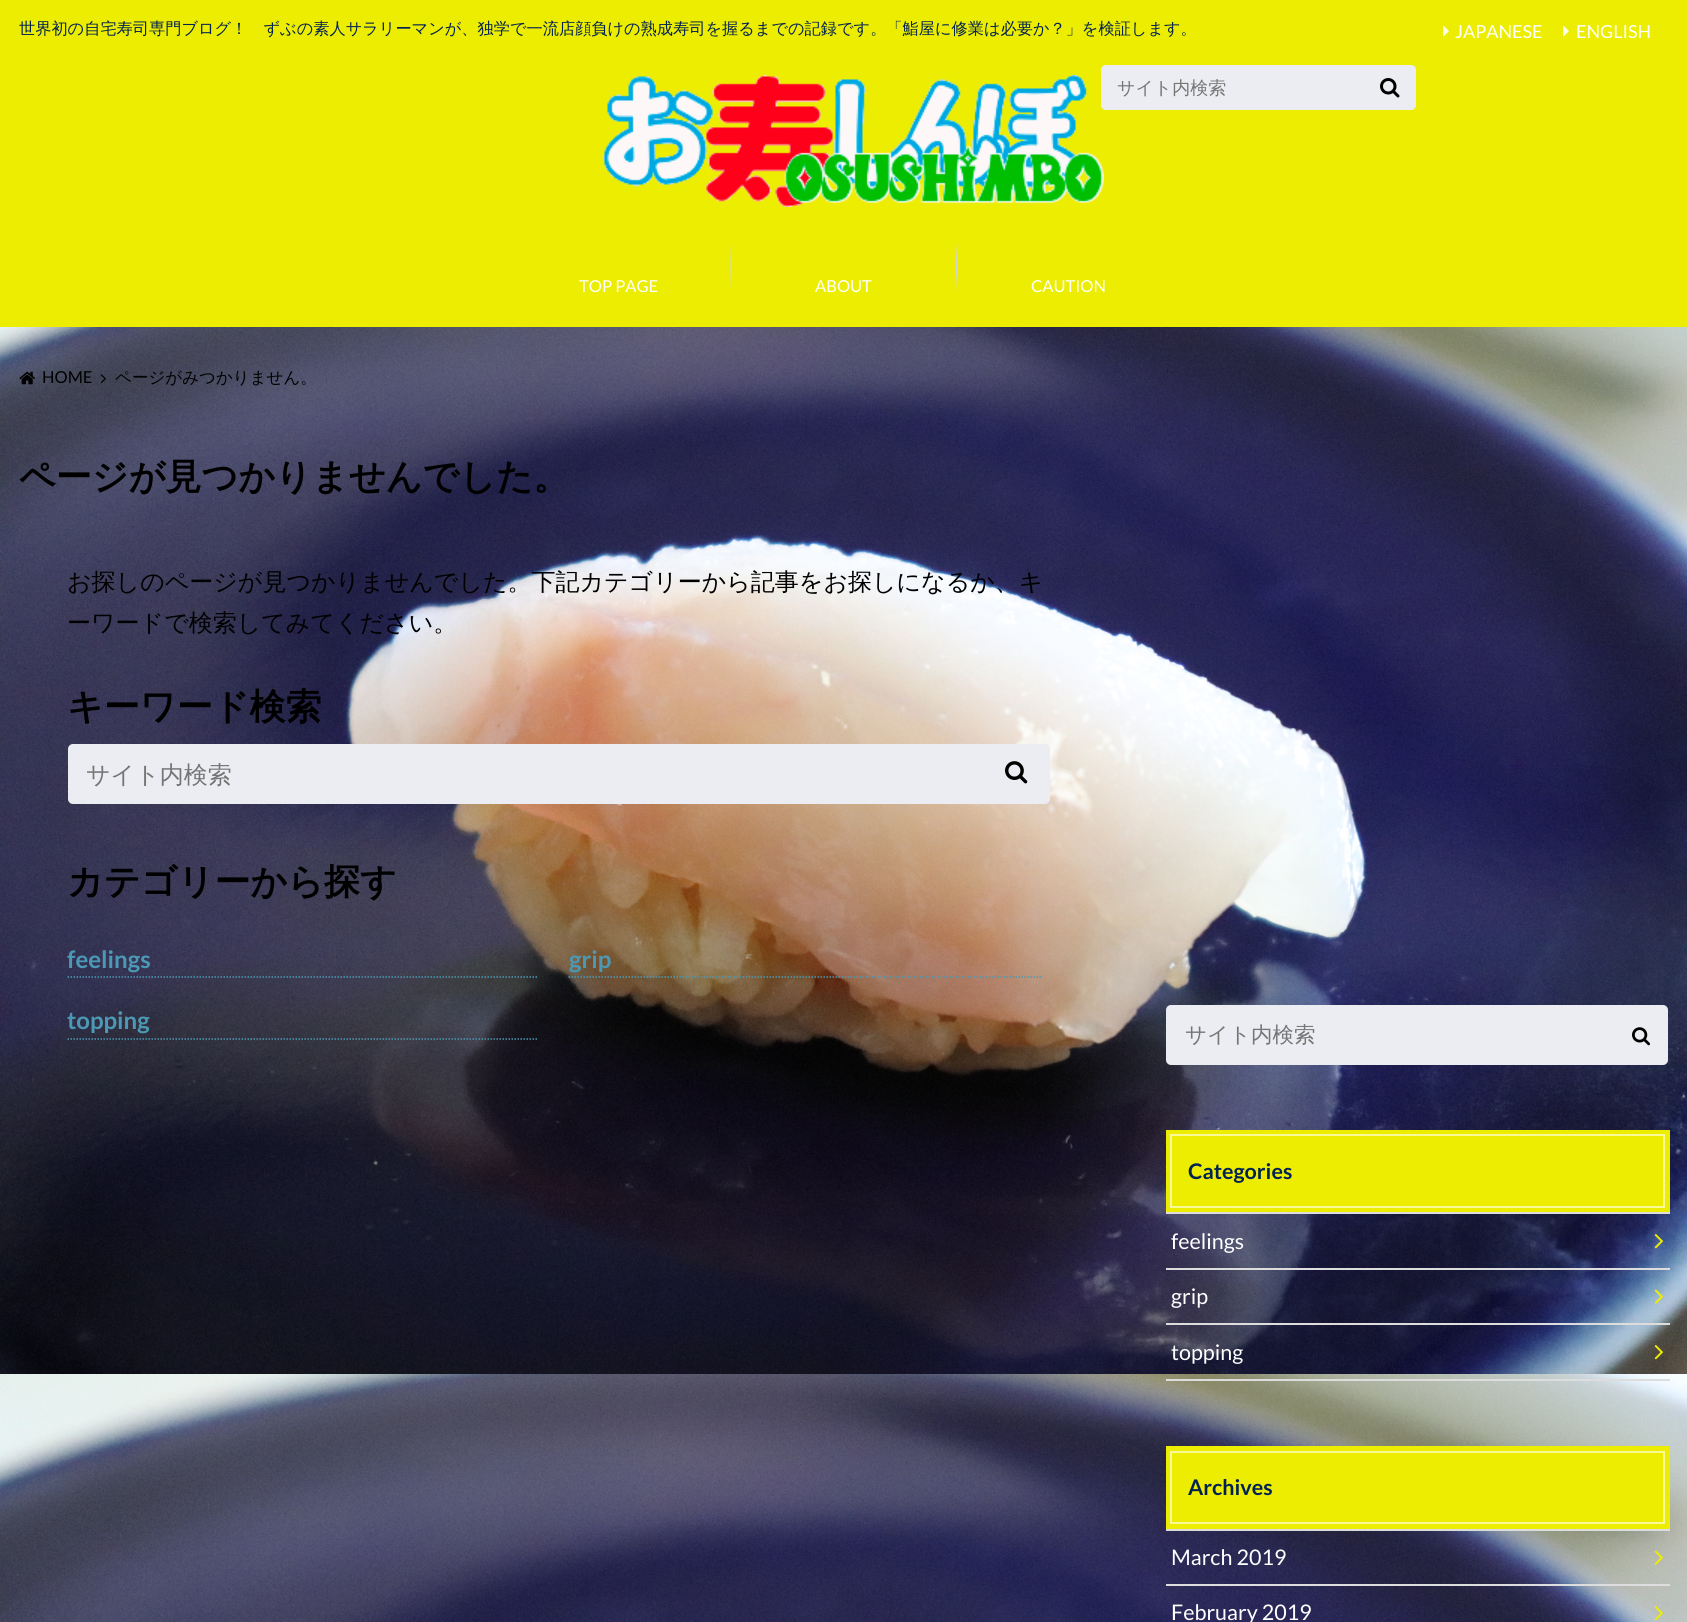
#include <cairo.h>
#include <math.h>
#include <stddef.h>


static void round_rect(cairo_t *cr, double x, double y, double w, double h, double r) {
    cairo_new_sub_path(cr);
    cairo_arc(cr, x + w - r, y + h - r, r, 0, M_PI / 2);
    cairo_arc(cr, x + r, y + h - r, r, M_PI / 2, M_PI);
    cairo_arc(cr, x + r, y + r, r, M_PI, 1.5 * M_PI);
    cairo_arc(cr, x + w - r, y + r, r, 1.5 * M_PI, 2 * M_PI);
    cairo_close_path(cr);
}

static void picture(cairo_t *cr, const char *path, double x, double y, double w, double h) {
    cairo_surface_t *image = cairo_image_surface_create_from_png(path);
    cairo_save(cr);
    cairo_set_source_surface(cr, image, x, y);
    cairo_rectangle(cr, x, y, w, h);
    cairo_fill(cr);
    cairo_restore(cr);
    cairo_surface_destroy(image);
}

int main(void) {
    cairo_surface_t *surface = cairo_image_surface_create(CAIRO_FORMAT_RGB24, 1687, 1622);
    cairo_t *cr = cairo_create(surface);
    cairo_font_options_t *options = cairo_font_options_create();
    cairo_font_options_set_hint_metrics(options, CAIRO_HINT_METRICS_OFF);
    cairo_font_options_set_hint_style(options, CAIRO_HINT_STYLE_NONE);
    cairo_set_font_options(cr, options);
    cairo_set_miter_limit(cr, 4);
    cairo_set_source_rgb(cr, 1, 1, 1);
    cairo_paint(cr);
    picture(cr, "img1.png", 0, 327, 1687, 1295);
    cairo_set_source_rgb(cr, 0.929, 0.929, 0.008);
    cairo_rectangle(cr, 0, 0, 1687, 327);
    cairo_fill(cr);
    cairo_select_font_face(cr, "WenQuanYi Zen Hei Medium", CAIRO_FONT_SLANT_NORMAL, CAIRO_FONT_WEIGHT_NORMAL);
    cairo_set_font_size(cr, 16.2);
    cairo_set_source_rgb(cr, 0.008, 0.133, 0.318);
    cairo_move_to(cr, 19, 34);
    cairo_show_text(cr, "世界初の自宅寿司専門ブログ！　ずぶの素人サラリーマンが、独学で一流店顔負けの熟成寿司を握るまでの記録です。「鮨屋に修業は必要か？」を検証します。");
    picture(cr, "img2.png", 1443, 26, 6, 11);
    cairo_select_font_face(cr, "Lato", CAIRO_FONT_SLANT_NORMAL, CAIRO_FONT_WEIGHT_NORMAL);
    cairo_set_font_size(cr, 18);
    cairo_set_source_rgb(cr, 1, 1, 1);
    cairo_move_to(cr, 1455, 38);
    cairo_show_text(cr, "JAPANESE");
    picture(cr, "img2.png", 1563, 26, 6, 11);
    cairo_move_to(cr, 1576, 38);
    cairo_show_text(cr, "ENGLISH");
    picture(cr, "img4.png", 602, 75, 502, 132);
    cairo_set_source_rgb(cr, 0.918, 0.929, 0.949);
    round_rect(cr, 1101, 65, 315, 45, 5);
    cairo_fill(cr);
    cairo_select_font_face(cr, "WenQuanYi Zen Hei Medium", CAIRO_FONT_SLANT_NORMAL, CAIRO_FONT_WEIGHT_NORMAL);
    cairo_set_source_rgb(cr, 0.459, 0.459, 0.459);
    cairo_move_to(cr, 1117, 94);
    cairo_show_text(cr, "サイト内検索");
    picture(cr, "img3.png", 1380, 78, 20, 20);
    picture(cr, "img5.png", 730, 243, 2, 48);
    cairo_select_font_face(cr, "Lato", CAIRO_FONT_SLANT_NORMAL, CAIRO_FONT_WEIGHT_NORMAL);
    cairo_set_font_size(cr, 16.5);
    cairo_set_source_rgb(cr, 1, 1, 1);
    cairo_move_to(cr, 579, 292);
    cairo_show_text(cr, "TOP PAGE");
    picture(cr, "img5.png", 955, 243, 2, 48);
    cairo_move_to(cr, 815, 292);
    cairo_show_text(cr, "ABOUT");
    cairo_move_to(cr, 1031, 292);
    cairo_show_text(cr, "CAUTION");
    picture(cr, "img6.png", 19, 371, 16, 14);
    cairo_set_source_rgb(cr, 0, 0, 0);
    cairo_move_to(cr, 42, 383);
    cairo_show_text(cr, "HOME");
    picture(cr, "img7.png", 100, 374, 6, 10);
    cairo_select_font_face(cr, "WenQuanYi Zen Hei Medium", CAIRO_FONT_SLANT_NORMAL, CAIRO_FONT_WEIGHT_NORMAL);
    cairo_move_to(cr, 115, 383);
    cairo_show_text(cr, "ページがみつかりません。");
    cairo_select_font_face(cr, "WenQuanYi Zen Hei", CAIRO_FONT_SLANT_NORMAL, CAIRO_FONT_WEIGHT_BOLD);
    cairo_set_font_size(cr, 36);
    cairo_move_to(cr, 19, 489);
    cairo_show_text(cr, "ページが見つかりませんでした。");
    cairo_select_font_face(cr, "WenQuanYi Zen Hei Medium", CAIRO_FONT_SLANT_NORMAL, CAIRO_FONT_WEIGHT_NORMAL);
    cairo_set_font_size(cr, 24);
    cairo_move_to(cr, 67, 590);
    cairo_show_text(cr, "お探しのページが見つかりませんでした。下記カテゴリーから記事をお探しになるか、キ");
    cairo_move_to(cr, 67, 631);
    cairo_show_text(cr, "ーワードで検索してみてください。");
    cairo_select_font_face(cr, "WenQuanYi Zen Hei", CAIRO_FONT_SLANT_NORMAL, CAIRO_FONT_WEIGHT_BOLD);
    cairo_set_font_size(cr, 36);
    cairo_move_to(cr, 67, 719);
    cairo_show_text(cr, "キーワード検索");
    cairo_set_source_rgb(cr, 0.918, 0.929, 0.949);
    round_rect(cr, 68, 744, 982, 60, 5);
    cairo_fill(cr);
    cairo_select_font_face(cr, "WenQuanYi Zen Hei Medium", CAIRO_FONT_SLANT_NORMAL, CAIRO_FONT_WEIGHT_NORMAL);
    cairo_set_font_size(cr, 24);
    cairo_set_source_rgb(cr, 0.459, 0.459, 0.459);
    cairo_move_to(cr, 86, 783);
    cairo_show_text(cr, "サイト内検索");
    picture(cr, "img8.png", 1005, 761, 23, 23);
    cairo_select_font_face(cr, "WenQuanYi Zen Hei", CAIRO_FONT_SLANT_NORMAL, CAIRO_FONT_WEIGHT_BOLD);
    cairo_set_font_size(cr, 36);
    cairo_set_source_rgb(cr, 0, 0, 0);
    cairo_move_to(cr, 67, 894);
    cairo_show_text(cr, "カテゴリーから探す");
    cairo_new_path(cr);
    cairo_move_to(cr, 67.5, 977);
    cairo_line_to(cr, 538.5, 977);
    cairo_set_source_rgb(cr, 0.294, 0.6, 0.71);
    cairo_set_line_width(cr, 1.5);
    cairo_set_dash(cr, (double[]){1.5, 1.5}, 2, 0);
    cairo_stroke(cr);
    cairo_select_font_face(cr, "Lato", CAIRO_FONT_SLANT_NORMAL, CAIRO_FONT_WEIGHT_BOLD);
    cairo_set_font_size(cr, 24);
    cairo_move_to(cr, 67, 968);
    cairo_show_text(cr, "feelings");
    cairo_new_path(cr);
    cairo_move_to(cr, 568.5, 977);
    cairo_line_to(cr, 1041, 977);
    cairo_stroke(cr);
    cairo_move_to(cr, 569, 968);
    cairo_show_text(cr, "grip");
    cairo_new_path(cr);
    cairo_move_to(cr, 67.5, 1039);
    cairo_line_to(cr, 538.5, 1039);
    cairo_stroke(cr);
    cairo_move_to(cr, 67, 1029);
    cairo_show_text(cr, "topping");
    cairo_set_source_rgb(cr, 0.918, 0.929, 0.949);
    round_rect(cr, 1166, 1005, 502, 60, 5);
    cairo_fill(cr);
    cairo_select_font_face(cr, "WenQuanYi Zen Hei Medium", CAIRO_FONT_SLANT_NORMAL, CAIRO_FONT_WEIGHT_NORMAL);
    cairo_set_font_size(cr, 21.5);
    cairo_set_source_rgb(cr, 0.459, 0.459, 0.459);
    cairo_move_to(cr, 1185, 1042);
    cairo_show_text(cr, "サイト内検索");
    picture(cr, "img9.png", 1632, 1027, 18, 19);
    cairo_set_source_rgb(cr, 0.929, 0.929, 0.008);
    cairo_rectangle(cr, 1166, 1130, 504, 82);
    cairo_fill(cr);
    cairo_rectangle(cr, 1171, 1135, 493, 72);
    cairo_set_source_rgb(cr, 0.973, 0.973, 0.604);
    cairo_set_line_width(cr, 2);
    cairo_set_dash(cr, NULL, 0, 0);
    cairo_stroke(cr);
    cairo_select_font_face(cr, "Lato", CAIRO_FONT_SLANT_NORMAL, CAIRO_FONT_WEIGHT_BOLD);
    cairo_set_source_rgb(cr, 0.008, 0.133, 0.318);
    cairo_move_to(cr, 1188, 1179);
    cairo_show_text(cr, "Categories");
    cairo_set_source_rgb(cr, 0.867, 0.867, 0.867);
    cairo_rectangle(cr, 1166, 1212, 504, 2);
    cairo_fill(cr);
    cairo_rectangle(cr, 1166, 1268, 504, 2);
    cairo_fill(cr);
    cairo_select_font_face(cr, "Lato", CAIRO_FONT_SLANT_NORMAL, CAIRO_FONT_WEIGHT_NORMAL);
    cairo_set_source_rgb(cr, 1, 1, 1);
    cairo_move_to(cr, 1171, 1249);
    cairo_show_text(cr, "feelings");
    picture(cr, "img10.png", 1654, 1234, 10, 15);
    cairo_set_source_rgb(cr, 0.867, 0.867, 0.867);
    cairo_rectangle(cr, 1166, 1323, 504, 2);
    cairo_fill(cr);
    cairo_set_source_rgb(cr, 1, 1, 1);
    cairo_move_to(cr, 1171, 1304);
    cairo_show_text(cr, "grip");
    picture(cr, "img11.png", 1654, 1289, 10, 15);
    cairo_set_source_rgb(cr, 0.867, 0.867, 0.867);
    cairo_rectangle(cr, 1166, 1379, 504, 2);
    cairo_fill(cr);
    cairo_set_source_rgb(cr, 1, 1, 1);
    cairo_move_to(cr, 1171, 1360);
    cairo_show_text(cr, "topping");
    picture(cr, "img12.png", 1654, 1345, 9, 15);
    cairo_set_source_rgb(cr, 0.929, 0.929, 0.008);
    cairo_rectangle(cr, 1166, 1446, 504, 83);
    cairo_fill(cr);
    cairo_rectangle(cr, 1171, 1452, 493, 71);
    cairo_set_source_rgb(cr, 0.973, 0.973, 0.604);
    cairo_stroke(cr);
    cairo_select_font_face(cr, "Lato", CAIRO_FONT_SLANT_NORMAL, CAIRO_FONT_WEIGHT_BOLD);
    cairo_set_source_rgb(cr, 0.008, 0.133, 0.318);
    cairo_move_to(cr, 1188, 1495);
    cairo_show_text(cr, "Archives");
    cairo_set_source_rgb(cr, 0.867, 0.867, 0.867);
    cairo_rectangle(cr, 1166, 1529, 504, 2);
    cairo_fill(cr);
    cairo_rectangle(cr, 1166, 1584, 504, 2);
    cairo_fill(cr);
    cairo_select_font_face(cr, "Lato", CAIRO_FONT_SLANT_NORMAL, CAIRO_FONT_WEIGHT_NORMAL);
    cairo_set_source_rgb(cr, 1, 1, 1);
    cairo_move_to(cr, 1171, 1565);
    cairo_show_text(cr, "March 2019");
    picture(cr, "img13.png", 1654, 1550, 10, 15);
    cairo_move_to(cr, 1171, 1620);
    cairo_show_text(cr, "February 2019");
    picture(cr, "img14.png", 1654, 1606, 10, 15);
    cairo_surface_write_to_png(surface, "page.png");
    cairo_font_options_destroy(options);
    cairo_destroy(cr);
    cairo_surface_destroy(surface);
    return 0;
}
